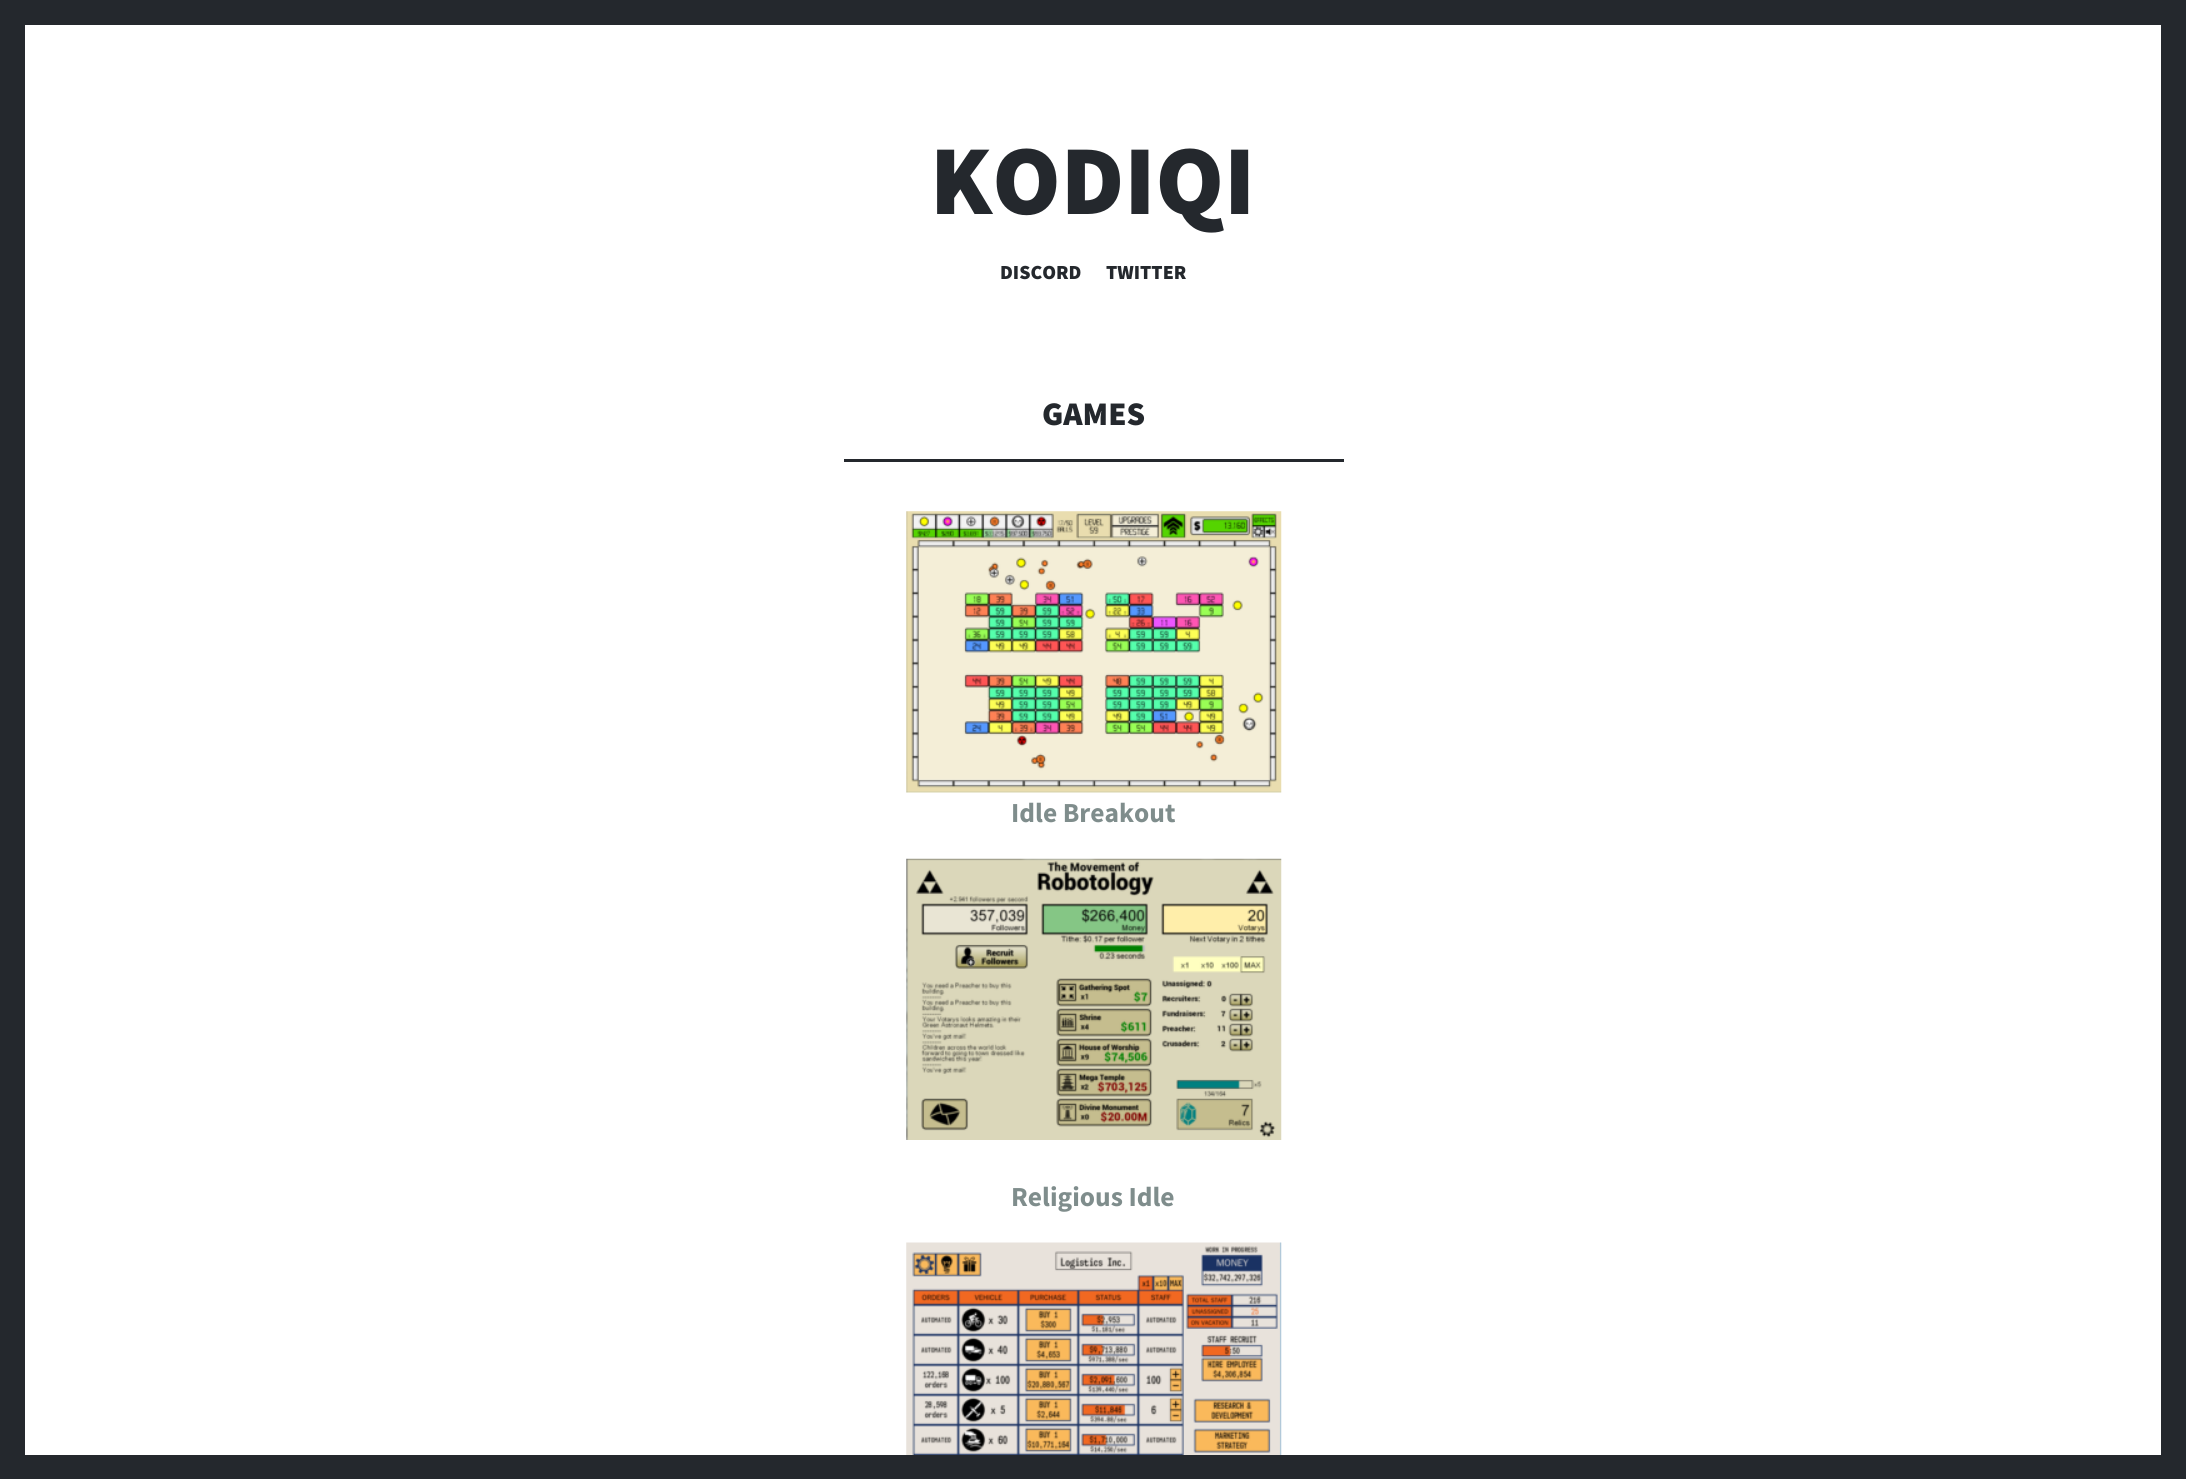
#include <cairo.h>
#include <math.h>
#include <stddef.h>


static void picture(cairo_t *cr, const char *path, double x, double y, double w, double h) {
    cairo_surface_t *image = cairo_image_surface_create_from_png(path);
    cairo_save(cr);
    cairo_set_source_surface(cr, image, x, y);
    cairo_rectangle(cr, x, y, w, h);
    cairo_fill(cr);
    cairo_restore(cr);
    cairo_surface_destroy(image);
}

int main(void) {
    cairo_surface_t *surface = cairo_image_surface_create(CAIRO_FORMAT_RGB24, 2186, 1479);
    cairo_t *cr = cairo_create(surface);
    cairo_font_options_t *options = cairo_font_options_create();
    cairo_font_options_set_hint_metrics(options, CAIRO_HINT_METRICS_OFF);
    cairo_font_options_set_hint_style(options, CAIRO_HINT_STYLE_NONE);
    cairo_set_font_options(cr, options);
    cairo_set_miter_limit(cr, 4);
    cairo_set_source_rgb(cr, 0.141, 0.157, 0.176);
    cairo_paint(cr);
    cairo_set_source_rgb(cr, 1, 1, 1);
    cairo_rectangle(cr, 25, 25, 2136, 1430);
    cairo_fill(cr);
    cairo_select_font_face(cr, "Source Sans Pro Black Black", CAIRO_FONT_SLANT_NORMAL, CAIRO_FONT_WEIGHT_NORMAL);
    cairo_set_font_size(cr, 99);
    cairo_set_source_rgb(cr, 0.141, 0.157, 0.176);
    cairo_move_to(cr, 930, 214);
    cairo_show_text(cr, "KODIQI");
    cairo_set_font_size(cr, 20);
    cairo_move_to(cr, 1000, 279);
    cairo_show_text(cr, "DISCORD");
    cairo_move_to(cr, 1106, 279);
    cairo_show_text(cr, "TWITTER");
    cairo_set_font_size(cr, 33);
    cairo_move_to(cr, 1042, 425);
    cairo_show_text(cr, "GAMES");
    cairo_rectangle(cr, 844, 459, 500, 3);
    cairo_fill(cr);
    picture(cr, "img1.png", 906, 511, 376, 282);
    cairo_select_font_face(cr, "Source Sans Pro", CAIRO_FONT_SLANT_NORMAL, CAIRO_FONT_WEIGHT_BOLD);
    cairo_set_font_size(cr, 27.5);
    cairo_set_source_rgb(cr, 0.498, 0.553, 0.549);
    cairo_move_to(cr, 1011, 822);
    cairo_show_text(cr, "Idle Breakout");
    picture(cr, "img2.png", 906, 858, 376, 282);
    cairo_move_to(cr, 1011, 1206);
    cairo_show_text(cr, "Religious Idle");
    picture(cr, "img3.png", 906, 1242, 376, 213);
    cairo_surface_write_to_png(surface, "page.png");
    cairo_font_options_destroy(options);
    cairo_destroy(cr);
    cairo_surface_destroy(surface);
    return 0;
}
